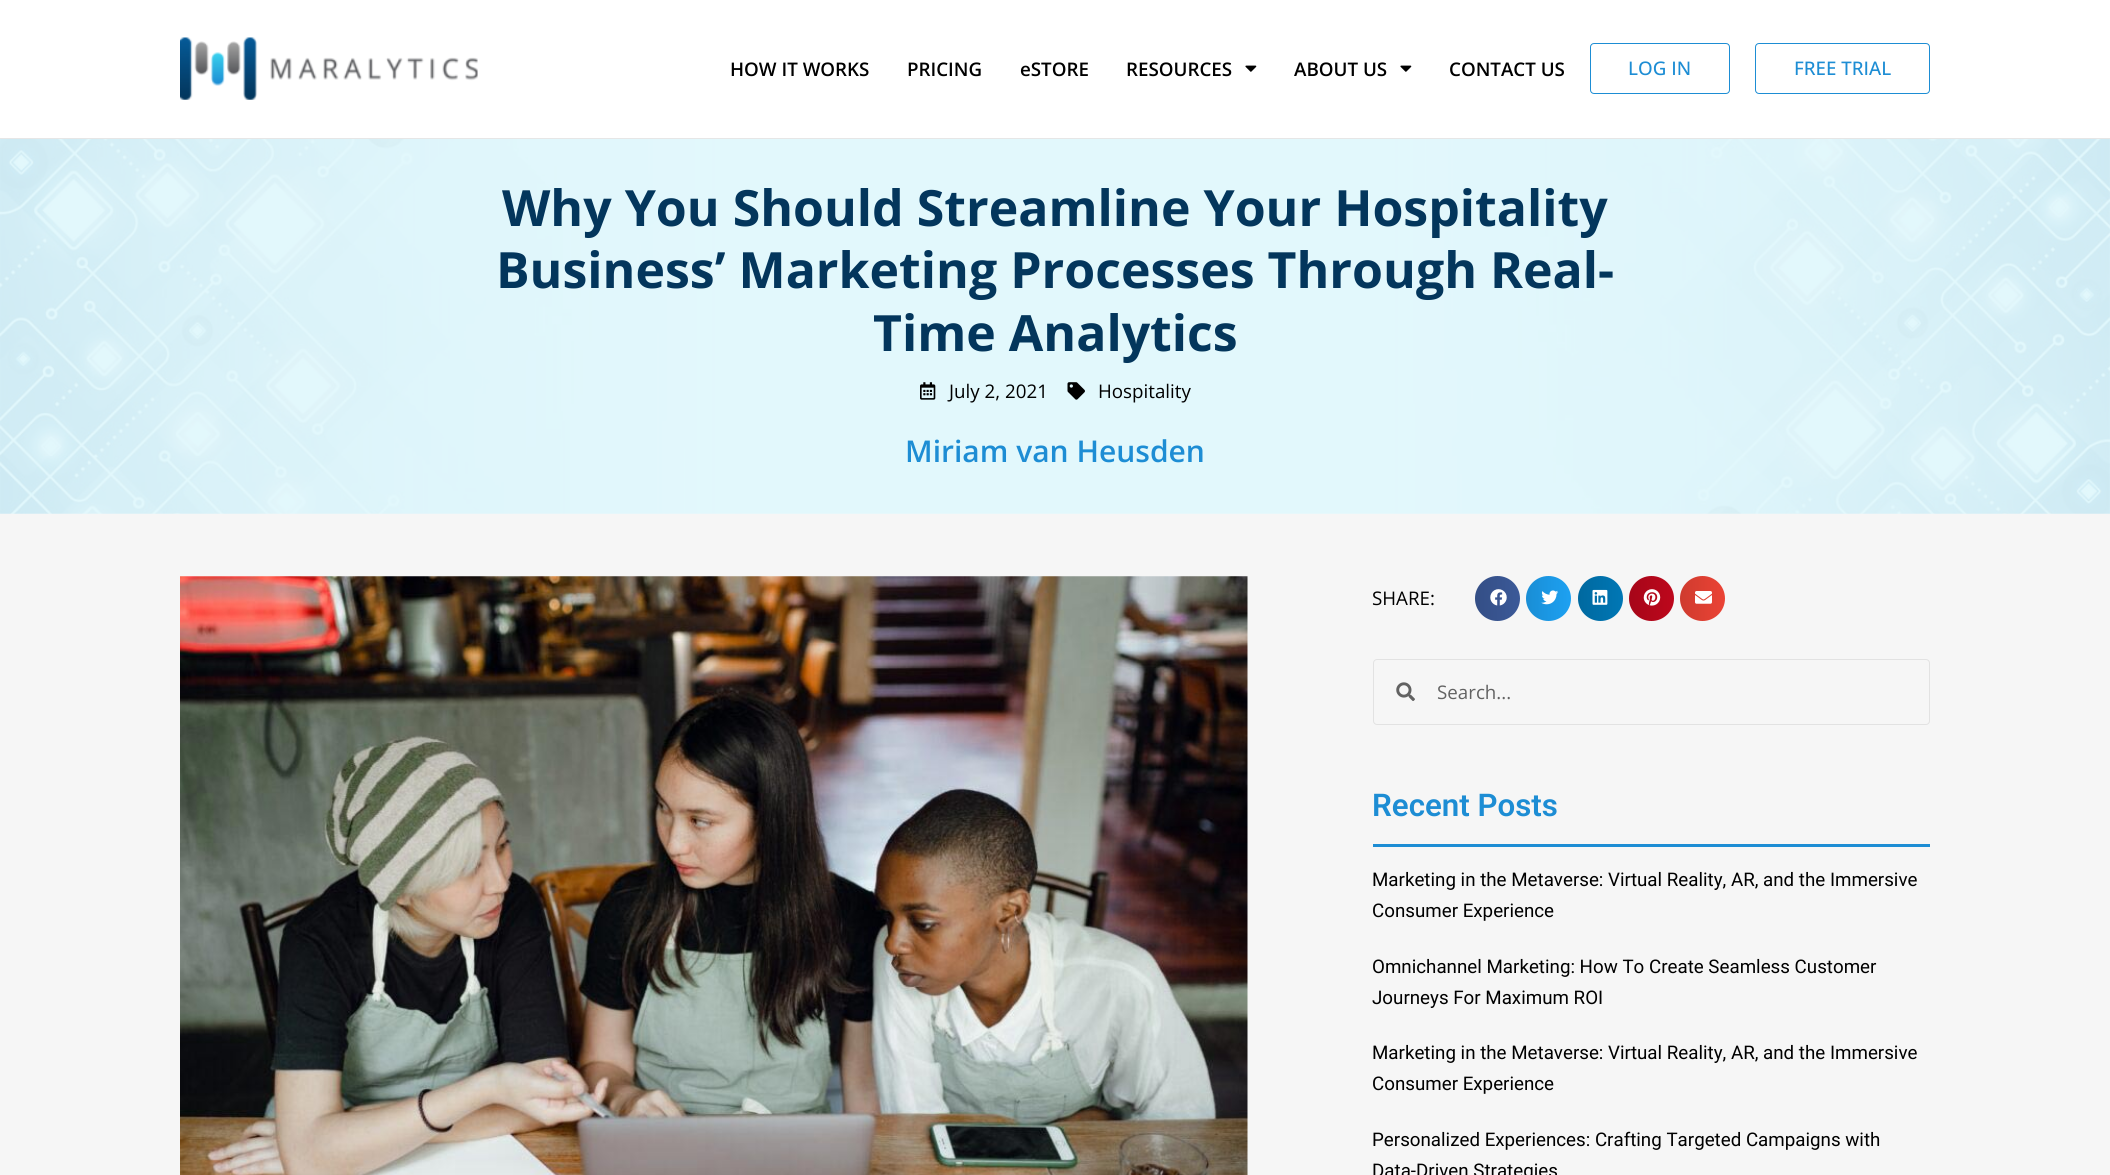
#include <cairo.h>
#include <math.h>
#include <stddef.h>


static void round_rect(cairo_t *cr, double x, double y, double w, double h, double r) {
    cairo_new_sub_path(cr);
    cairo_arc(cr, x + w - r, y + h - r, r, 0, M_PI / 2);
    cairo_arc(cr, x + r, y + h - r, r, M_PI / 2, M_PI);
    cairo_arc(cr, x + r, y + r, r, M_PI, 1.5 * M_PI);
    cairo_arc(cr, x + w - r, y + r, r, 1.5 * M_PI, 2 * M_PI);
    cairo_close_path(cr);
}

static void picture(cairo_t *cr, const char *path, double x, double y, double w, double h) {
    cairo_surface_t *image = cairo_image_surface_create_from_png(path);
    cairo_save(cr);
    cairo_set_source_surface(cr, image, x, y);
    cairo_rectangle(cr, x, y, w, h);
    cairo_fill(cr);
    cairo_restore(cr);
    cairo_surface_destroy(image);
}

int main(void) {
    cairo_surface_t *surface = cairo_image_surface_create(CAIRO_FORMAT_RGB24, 2110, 1175);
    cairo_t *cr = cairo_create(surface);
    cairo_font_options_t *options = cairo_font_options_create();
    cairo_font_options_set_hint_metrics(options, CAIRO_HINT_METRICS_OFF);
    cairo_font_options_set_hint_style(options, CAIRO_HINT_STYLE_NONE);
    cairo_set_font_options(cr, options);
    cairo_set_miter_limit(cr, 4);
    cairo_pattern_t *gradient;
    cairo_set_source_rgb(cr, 0.961, 0.961, 0.961);
    cairo_paint(cr);
    cairo_set_source_rgb(cr, 1, 1, 1);
    cairo_rectangle(cr, 0, 0, 2110, 138);
    cairo_fill(cr);
    cairo_set_source_rgb(cr, 0.902, 0.902, 0.902);
    cairo_rectangle(cr, 0, 138, 2110, 1);
    cairo_fill(cr);
    picture(cr, "img1.png", 180, 37, 298, 63);
    cairo_select_font_face(cr, "Open Sans SemiBold", CAIRO_FONT_SLANT_NORMAL, CAIRO_FONT_WEIGHT_NORMAL);
    cairo_set_font_size(cr, 18.75);
    cairo_set_source_rgb(cr, 0, 0, 0);
    cairo_move_to(cr, 730, 76);
    cairo_show_text(cr, "HOW IT WORKS");
    cairo_move_to(cr, 907, 76);
    cairo_show_text(cr, "PRICING");
    cairo_move_to(cr, 1020, 76);
    cairo_show_text(cr, "eSTORE");
    cairo_move_to(cr, 1126, 76);
    cairo_show_text(cr, "RESOURCES");
    picture(cr, "img2.png", 1245, 65, 12, 7);
    cairo_move_to(cr, 1294, 76);
    cairo_show_text(cr, "ABOUT US");
    picture(cr, "img2.png", 1400, 65, 12, 7);
    cairo_move_to(cr, 1449, 76);
    cairo_show_text(cr, "CONTACT US");
    round_rect(cr, 1590.5, 43.5, 139, 50, 3.5);
    cairo_set_source_rgb(cr, 0.114, 0.553, 0.831);
    cairo_set_line_width(cr, 1);
    cairo_stroke(cr);
    cairo_select_font_face(cr, "Open Sans Medium", CAIRO_FONT_SLANT_NORMAL, CAIRO_FONT_WEIGHT_NORMAL);
    cairo_move_to(cr, 1628, 75);
    cairo_show_text(cr, "LOG IN");
    round_rect(cr, 1755.5, 43.5, 174, 50, 3.5);
    cairo_stroke(cr);
    cairo_move_to(cr, 1794, 75);
    cairo_show_text(cr, "FREE TRIAL");
    picture(cr, "img3.png", 0, 139, 2110, 375);
    cairo_select_font_face(cr, "Open Sans", CAIRO_FONT_SLANT_NORMAL, CAIRO_FONT_WEIGHT_BOLD);
    cairo_set_font_size(cr, 50);
    cairo_set_source_rgb(cr, 0.012, 0.212, 0.361);
    cairo_move_to(cr, 502, 226);
    cairo_show_text(cr, "Why You Should Streamline Your Hospitality");
    cairo_move_to(cr, 496, 288);
    cairo_show_text(cr, "Business’ Marketing Processes Through Real-");
    cairo_move_to(cr, 873, 351);
    cairo_show_text(cr, "Time Analytics");
    picture(cr, "img4.png", 920, 382, 16, 18);
    cairo_select_font_face(cr, "Open Sans", CAIRO_FONT_SLANT_NORMAL, CAIRO_FONT_WEIGHT_NORMAL);
    cairo_set_font_size(cr, 18.75);
    cairo_set_source_rgb(cr, 0, 0, 0);
    cairo_move_to(cr, 949, 398);
    cairo_show_text(cr, "July 2, 2021");
    picture(cr, "img5.png", 1067, 382, 18, 18);
    cairo_move_to(cr, 1098, 398);
    cairo_show_text(cr, "Hospitality");
    cairo_select_font_face(cr, "Open Sans SemiBold", CAIRO_FONT_SLANT_NORMAL, CAIRO_FONT_WEIGHT_NORMAL);
    cairo_set_font_size(cr, 30);
    cairo_set_source_rgb(cr, 0.114, 0.553, 0.831);
    cairo_move_to(cr, 905, 462);
    cairo_show_text(cr, "Miriam van Heusden");
    picture(cr, "img6.png", 180, 576, 1068, 599);
    cairo_select_font_face(cr, "Open Sans", CAIRO_FONT_SLANT_NORMAL, CAIRO_FONT_WEIGHT_NORMAL);
    cairo_set_font_size(cr, 18.75);
    cairo_set_source_rgb(cr, 0, 0, 0);
    cairo_move_to(cr, 1372, 605);
    cairo_show_text(cr, "SHARE:");
    cairo_set_source_rgb(cr, 0.231, 0.349, 0.596);
    cairo_new_path(cr);
    cairo_arc(cr, 1497.5, 598.5, 22.5, 0, 2 * M_PI);
    cairo_fill(cr);
    gradient = cairo_pattern_create_linear(1475, 599, 1520, 599);
    cairo_pattern_add_color_stop_rgba(gradient, 0, 0, 0, 0, 0.12);
    cairo_pattern_add_color_stop_rgba(gradient, 1, 0, 0, 0, 0);
    cairo_set_source(cr, gradient);
    cairo_pattern_destroy(gradient);
    cairo_arc(cr, 1497.5, 598.5, 22.5, 0, 2 * M_PI);
    cairo_fill(cr);
    picture(cr, "img7.png", 1490, 589, 17, 17);
    cairo_set_source_rgb(cr, 0.114, 0.631, 0.949);
    cairo_arc(cr, 1548.5, 598.5, 22.5, 0, 2 * M_PI);
    cairo_fill(cr);
    gradient = cairo_pattern_create_linear(1526, 599, 1571, 599);
    cairo_pattern_add_color_stop_rgba(gradient, 0, 0, 0, 0, 0.12);
    cairo_pattern_add_color_stop_rgba(gradient, 1, 0, 0, 0, 0);
    cairo_set_source(cr, gradient);
    cairo_pattern_destroy(gradient);
    cairo_arc(cr, 1548.5, 598.5, 22.5, 0, 2 * M_PI);
    cairo_fill(cr);
    picture(cr, "img8.png", 1541, 590, 18, 15);
    cairo_set_source_rgb(cr, 0, 0.467, 0.71);
    cairo_arc(cr, 1600.5, 598.5, 22.5, 0, 2 * M_PI);
    cairo_fill(cr);
    gradient = cairo_pattern_create_linear(1578, 599, 1623, 599);
    cairo_pattern_add_color_stop_rgba(gradient, 0, 0, 0, 0, 0.12);
    cairo_pattern_add_color_stop_rgba(gradient, 1, 0, 0, 0, 0);
    cairo_set_source(cr, gradient);
    cairo_pattern_destroy(gradient);
    cairo_arc(cr, 1600.5, 598.5, 22.5, 0, 2 * M_PI);
    cairo_fill(cr);
    picture(cr, "img9.png", 1592, 589, 16, 16);
    cairo_set_source_rgb(cr, 0.741, 0.031, 0.11);
    cairo_arc(cr, 1651.5, 598.5, 22.5, 0, 2 * M_PI);
    cairo_fill(cr);
    gradient = cairo_pattern_create_linear(1629, 599, 1674, 599);
    cairo_pattern_add_color_stop_rgba(gradient, 0, 0, 0, 0, 0.12);
    cairo_pattern_add_color_stop_rgba(gradient, 1, 0, 0, 0, 0);
    cairo_set_source(cr, gradient);
    cairo_pattern_destroy(gradient);
    cairo_arc(cr, 1651.5, 598.5, 22.5, 0, 2 * M_PI);
    cairo_fill(cr);
    picture(cr, "img10.png", 1643, 589, 18, 17);
    cairo_set_source_rgb(cr, 0.918, 0.263, 0.208);
    cairo_arc(cr, 1702.5, 598.5, 22.5, 0, 2 * M_PI);
    cairo_fill(cr);
    gradient = cairo_pattern_create_linear(1680, 599, 1725, 599);
    cairo_pattern_add_color_stop_rgba(gradient, 0, 0, 0, 0, 0.12);
    cairo_pattern_add_color_stop_rgba(gradient, 1, 0, 0, 0, 0);
    cairo_set_source(cr, gradient);
    cairo_pattern_destroy(gradient);
    cairo_arc(cr, 1702.5, 598.5, 22.5, 0, 2 * M_PI);
    cairo_fill(cr);
    picture(cr, "img11.png", 1695, 591, 17, 13);
    round_rect(cr, 1373.5, 659.5, 556, 65, 3.5);
    cairo_set_source_rgb(cr, 0.886, 0.886, 0.886);
    cairo_stroke(cr);
    picture(cr, "img12.png", 1396, 682, 19, 19);
    cairo_set_source_rgb(cr, 0.384, 0.384, 0.384);
    cairo_move_to(cr, 1437, 699);
    cairo_show_text(cr, "Search...");
    cairo_set_source_rgb(cr, 0.114, 0.553, 0.831);
    cairo_rectangle(cr, 1373, 844, 557, 3);
    cairo_fill(cr);
    cairo_select_font_face(cr, "Roboto SemiBold", CAIRO_FONT_SLANT_NORMAL, CAIRO_FONT_WEIGHT_NORMAL);
    cairo_set_font_size(cr, 31.25);
    cairo_move_to(cr, 1372, 816);
    cairo_show_text(cr, "Recent Posts");
    cairo_select_font_face(cr, "Roboto", CAIRO_FONT_SLANT_NORMAL, CAIRO_FONT_WEIGHT_NORMAL);
    cairo_set_font_size(cr, 18.75);
    cairo_set_source_rgb(cr, 0, 0, 0);
    cairo_move_to(cr, 1372, 886);
    cairo_show_text(cr, "Marketing in the Metaverse: Virtual Reality, AR, and the Immersive");
    cairo_move_to(cr, 1372, 917);
    cairo_show_text(cr, "Consumer Experience");
    cairo_move_to(cr, 1372, 973);
    cairo_show_text(cr, "Omnichannel Marketing: How To Create Seamless Customer");
    cairo_move_to(cr, 1372, 1004);
    cairo_show_text(cr, "Journeys For Maximum ROI");
    cairo_move_to(cr, 1372, 1059);
    cairo_show_text(cr, "Marketing in the Metaverse: Virtual Reality, AR, and the Immersive");
    cairo_move_to(cr, 1372, 1090);
    cairo_show_text(cr, "Consumer Experience");
    cairo_move_to(cr, 1372, 1146);
    cairo_show_text(cr, "Personalized Experiences: Crafting Targeted Campaigns with");
    cairo_move_to(cr, 1372, 1177);
    cairo_show_text(cr, "Data-Driven Strategies");
    cairo_surface_write_to_png(surface, "page.png");
    cairo_font_options_destroy(options);
    cairo_destroy(cr);
    cairo_surface_destroy(surface);
    return 0;
}
